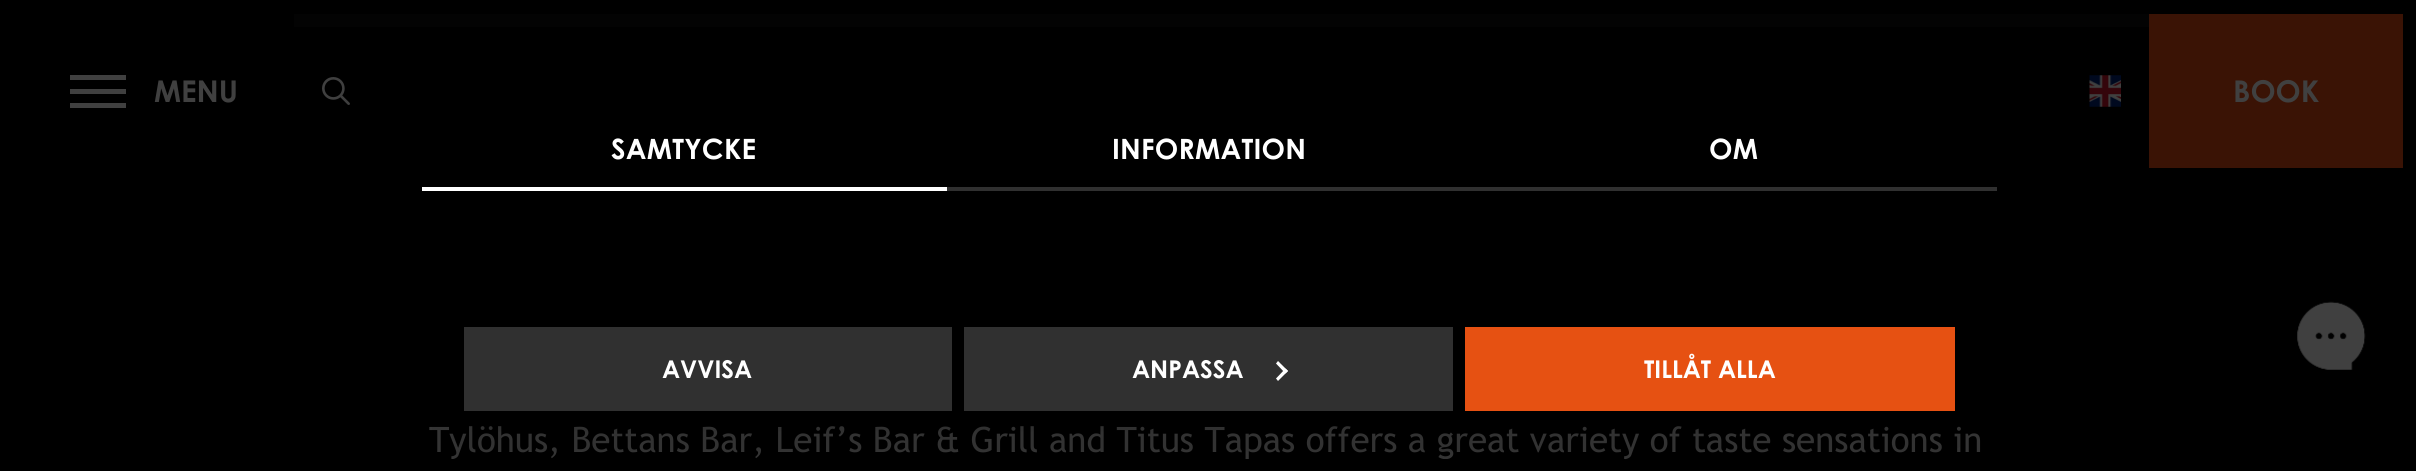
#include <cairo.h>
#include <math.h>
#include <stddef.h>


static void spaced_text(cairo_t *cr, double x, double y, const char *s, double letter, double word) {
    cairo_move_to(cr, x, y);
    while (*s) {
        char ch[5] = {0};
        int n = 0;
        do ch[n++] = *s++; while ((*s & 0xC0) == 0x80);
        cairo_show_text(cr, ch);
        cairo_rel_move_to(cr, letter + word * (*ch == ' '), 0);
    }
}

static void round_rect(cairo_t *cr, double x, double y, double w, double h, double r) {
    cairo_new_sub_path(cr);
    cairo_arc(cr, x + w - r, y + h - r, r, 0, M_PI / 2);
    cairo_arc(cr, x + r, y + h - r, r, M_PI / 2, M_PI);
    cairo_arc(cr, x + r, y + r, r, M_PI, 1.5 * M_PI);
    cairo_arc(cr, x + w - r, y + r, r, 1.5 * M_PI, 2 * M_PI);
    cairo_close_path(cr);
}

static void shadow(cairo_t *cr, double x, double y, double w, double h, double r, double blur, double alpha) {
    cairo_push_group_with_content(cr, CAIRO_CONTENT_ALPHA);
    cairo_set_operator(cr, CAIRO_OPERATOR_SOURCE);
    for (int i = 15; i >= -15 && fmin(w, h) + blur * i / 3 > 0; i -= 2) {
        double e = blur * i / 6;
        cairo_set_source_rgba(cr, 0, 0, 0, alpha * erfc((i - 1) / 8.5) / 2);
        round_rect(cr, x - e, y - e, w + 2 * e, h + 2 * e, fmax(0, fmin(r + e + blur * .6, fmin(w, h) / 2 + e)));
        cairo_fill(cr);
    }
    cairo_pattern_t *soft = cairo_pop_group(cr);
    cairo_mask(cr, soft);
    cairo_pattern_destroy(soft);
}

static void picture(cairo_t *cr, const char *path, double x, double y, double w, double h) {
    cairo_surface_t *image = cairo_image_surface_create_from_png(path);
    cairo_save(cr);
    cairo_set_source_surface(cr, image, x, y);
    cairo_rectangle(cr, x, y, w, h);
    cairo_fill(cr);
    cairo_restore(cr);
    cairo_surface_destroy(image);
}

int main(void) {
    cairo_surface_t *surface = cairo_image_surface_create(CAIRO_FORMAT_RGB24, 2416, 471);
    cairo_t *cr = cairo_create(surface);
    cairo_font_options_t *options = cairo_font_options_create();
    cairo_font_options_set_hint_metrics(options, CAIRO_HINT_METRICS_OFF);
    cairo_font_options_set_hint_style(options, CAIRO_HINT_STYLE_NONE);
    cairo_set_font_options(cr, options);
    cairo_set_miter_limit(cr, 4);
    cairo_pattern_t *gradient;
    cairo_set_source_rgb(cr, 0, 0, 0);
    cairo_paint(cr);
    gradient = cairo_pattern_create_linear(1208, 14, 1208, 168);
    cairo_pattern_add_color_stop_rgba(gradient, 0, 0.012, 0.012, 0.012, 1);
    cairo_pattern_add_color_stop_rgba(gradient, 0.5, 0, 0, 0, 1);
    cairo_set_source(cr, gradient);
    cairo_pattern_destroy(gradient);
    cairo_rectangle(cr, 294, 14, 1855, 13);
    cairo_fill(cr);
    cairo_set_source_rgb(cr, 0.251, 0.251, 0.251);
    cairo_rectangle(cr, 70, 75, 56, 5);
    cairo_fill(cr);
    cairo_rectangle(cr, 70, 89, 56, 5);
    cairo_fill(cr);
    cairo_rectangle(cr, 70, 103, 56, 5);
    cairo_fill(cr);
    cairo_select_font_face(cr, "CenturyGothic", CAIRO_FONT_SLANT_NORMAL, CAIRO_FONT_WEIGHT_BOLD);
    cairo_set_font_size(cr, 30);
    cairo_move_to(cr, 154, 102);
    cairo_show_text(cr, "MENU");
    picture(cr, "img1.png", 322, 77, 28, 28);
    picture(cr, "img2.png", 2089, 75, 32, 32);
    cairo_set_source_rgb(cr, 0.227, 0.078, 0.02);
    cairo_rectangle(cr, 2149, 14, 254, 154);
    cairo_fill(cr);
    cairo_set_source_rgb(cr, 0.251, 0.251, 0.251);
    cairo_move_to(cr, 2233, 102);
    cairo_show_text(cr, "BOOK");
    cairo_select_font_face(cr, "Trebuchet MS", CAIRO_FONT_SLANT_NORMAL, CAIRO_FONT_WEIGHT_NORMAL);
    cairo_set_font_size(cr, 35);
    cairo_move_to(cr, 429, 452);
    cairo_show_text(cr, "Tylöhus, Bettans Bar, Leif’s Bar & Grill and Titus Tapas offers a great variety of taste sensations in");
    cairo_set_source_rgb(cr, 0, 0, 0);
    cairo_rectangle(cr, 451, 459, 1174, 1);
    cairo_fill(cr);
    cairo_set_source_rgb(cr, 0, 0, 0);
    shadow(cr, 422, 103, 1575, 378, 14, 59.5, 0.3);
    cairo_select_font_face(cr, "CenturyGothic", CAIRO_FONT_SLANT_NORMAL, CAIRO_FONT_WEIGHT_BOLD);
    cairo_set_font_size(cr, 28);
    cairo_set_source_rgb(cr, 1, 1, 1);
    spaced_text(cr, 611, 159, "SAMTYCKE", 0.25, 0);
    cairo_rectangle(cr, 422, 187, 525, 4);
    cairo_fill(cr);
    spaced_text(cr, 1112, 159, "INFORMATION", 0.25, 0);
    cairo_set_source_rgb(cr, 0.188, 0.188, 0.188);
    cairo_rectangle(cr, 947, 187, 1050, 4);
    cairo_fill(cr);
    cairo_set_source_rgb(cr, 1, 1, 1);
    spaced_text(cr, 1709, 159, "OM", 0.25, 0);
    cairo_set_source_rgb(cr, 0.188, 0.188, 0.188);
    cairo_rectangle(cr, 464, 327, 488, 84);
    cairo_fill(cr);
    cairo_set_font_size(cr, 24.5);
    cairo_set_source_rgb(cr, 1, 1, 1);
    cairo_move_to(cr, 662, 378);
    cairo_show_text(cr, "AVVISA");
    cairo_set_source_rgb(cr, 0.188, 0.188, 0.188);
    cairo_rectangle(cr, 964, 327, 489, 84);
    cairo_fill(cr);
    cairo_set_source_rgb(cr, 1, 1, 1);
    cairo_move_to(cr, 1132, 378);
    cairo_show_text(cr, "ANPASSA");
    cairo_new_path(cr);
    cairo_move_to(cr, 1278, 361);
    cairo_line_to(cr, 1288, 371);
    cairo_line_to(cr, 1285.5, 373.5);
    cairo_line_to(cr, 1276, 363.5);
    cairo_close_path(cr);
    cairo_fill(cr);
    cairo_new_path(cr);
    cairo_move_to(cr, 1285.5, 368.5);
    cairo_line_to(cr, 1288, 371);
    cairo_line_to(cr, 1278, 381);
    cairo_line_to(cr, 1276, 378.5);
    cairo_close_path(cr);
    cairo_fill(cr);
    cairo_set_source_rgb(cr, 0.902, 0.318, 0.071);
    cairo_rectangle(cr, 1465, 327, 490, 84);
    cairo_fill(cr);
    cairo_set_source_rgb(cr, 1, 1, 1);
    cairo_move_to(cr, 1644, 378);
    cairo_show_text(cr, "TILLÅT ALLA");
    picture(cr, "img3.png", 2297, 301, 69, 69);
    cairo_surface_write_to_png(surface, "page.png");
    cairo_font_options_destroy(options);
    cairo_destroy(cr);
    cairo_surface_destroy(surface);
    return 0;
}
